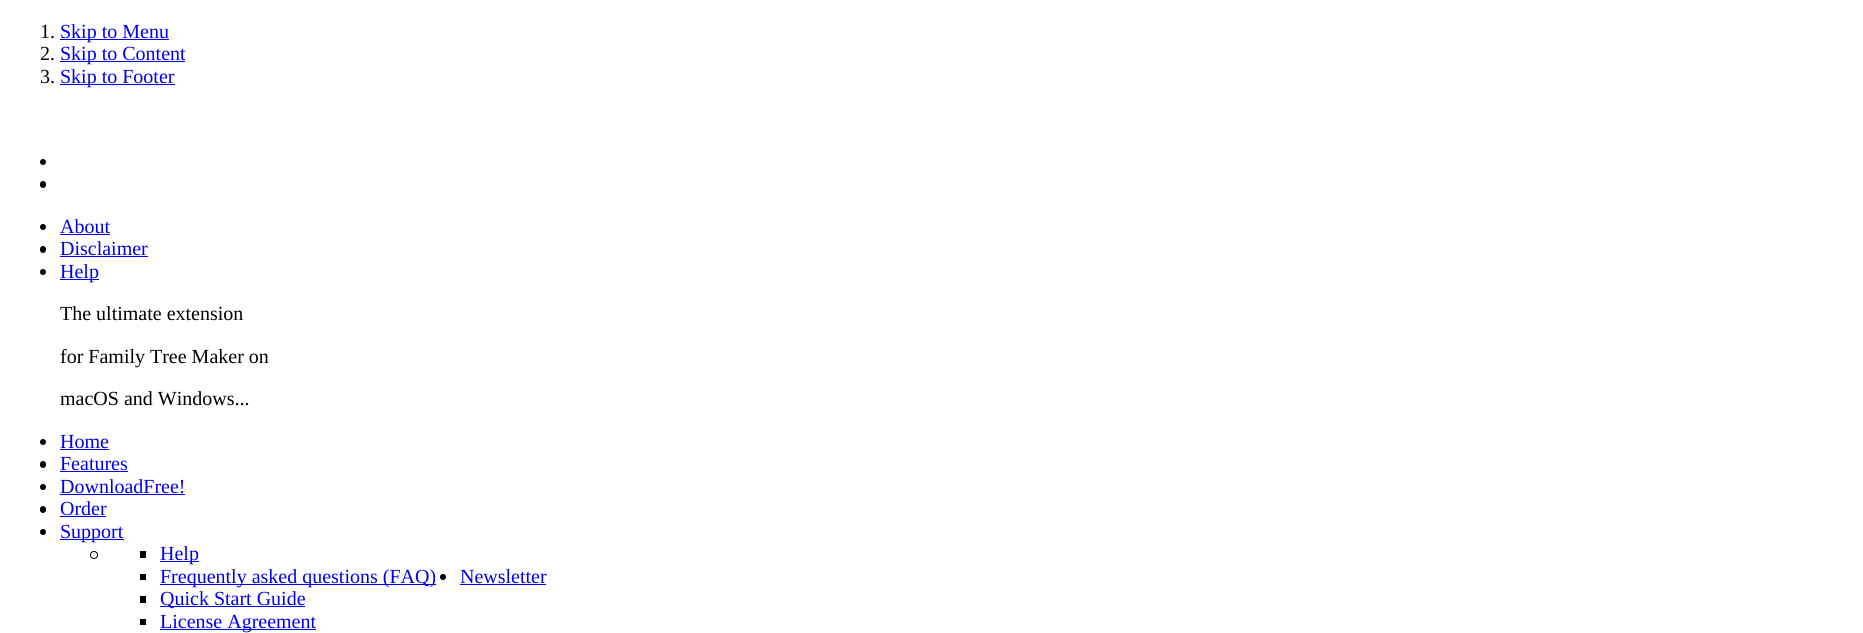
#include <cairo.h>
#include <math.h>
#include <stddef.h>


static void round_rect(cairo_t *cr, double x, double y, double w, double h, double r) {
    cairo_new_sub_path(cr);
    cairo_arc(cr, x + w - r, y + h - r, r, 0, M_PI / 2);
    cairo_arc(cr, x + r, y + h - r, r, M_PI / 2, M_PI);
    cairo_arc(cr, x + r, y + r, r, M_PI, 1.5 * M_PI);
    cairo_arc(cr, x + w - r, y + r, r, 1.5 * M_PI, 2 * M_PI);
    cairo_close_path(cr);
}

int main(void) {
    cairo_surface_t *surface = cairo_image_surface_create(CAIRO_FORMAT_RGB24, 1863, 633);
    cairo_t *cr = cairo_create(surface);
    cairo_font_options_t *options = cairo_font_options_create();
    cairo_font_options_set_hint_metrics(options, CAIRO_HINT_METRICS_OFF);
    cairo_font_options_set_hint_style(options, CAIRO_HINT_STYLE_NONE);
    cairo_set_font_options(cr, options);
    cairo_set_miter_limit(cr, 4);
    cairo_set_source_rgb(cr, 1, 1, 1);
    cairo_paint(cr);
    cairo_select_font_face(cr, "Liberation Serif", CAIRO_FONT_SLANT_NORMAL, CAIRO_FONT_WEIGHT_NORMAL);
    cairo_set_font_size(cr, 20);
    cairo_set_source_rgb(cr, 0, 0, 0);
    cairo_move_to(cr, 40, 38);
    cairo_show_text(cr, "1.");
    cairo_set_source_rgb(cr, 0, 0, 0.933);
    cairo_rectangle(cr, 60, 39, 109, 1);
    cairo_fill(cr);
    cairo_move_to(cr, 60, 38);
    cairo_show_text(cr, "Skip to Menu");
    cairo_set_source_rgb(cr, 0, 0, 0);
    cairo_move_to(cr, 40, 60);
    cairo_show_text(cr, "2.");
    cairo_set_source_rgb(cr, 0, 0, 0.933);
    cairo_rectangle(cr, 60, 61, 125, 1);
    cairo_fill(cr);
    cairo_move_to(cr, 60, 60);
    cairo_show_text(cr, "Skip to Content");
    cairo_set_source_rgb(cr, 0, 0, 0);
    cairo_move_to(cr, 40, 83);
    cairo_show_text(cr, "3.");
    cairo_set_source_rgb(cr, 0, 0, 0.933);
    cairo_rectangle(cr, 60, 84, 115, 1);
    cairo_fill(cr);
    cairo_move_to(cr, 60, 83);
    cairo_show_text(cr, "Skip to Footer");
    cairo_set_source_rgb(cr, 0, 0, 0);
    cairo_new_path(cr);
    cairo_arc(cr, 43, 162, 3, 0, 2 * M_PI);
    cairo_fill(cr);
    round_rect(cr, 40, 181, 6, 7, 3);
    cairo_fill(cr);
    cairo_arc(cr, 43, 227, 3, 0, 2 * M_PI);
    cairo_fill(cr);
    cairo_set_source_rgb(cr, 0, 0, 0.933);
    cairo_move_to(cr, 60, 233);
    cairo_show_text(cr, "About");
    cairo_rectangle(cr, 60, 234, 50, 1);
    cairo_fill(cr);
    cairo_set_source_rgb(cr, 0, 0, 0);
    round_rect(cr, 40, 246, 6, 7, 3);
    cairo_fill(cr);
    cairo_set_source_rgb(cr, 0, 0, 0.933);
    cairo_move_to(cr, 60, 255);
    cairo_show_text(cr, "Disclaimer");
    cairo_rectangle(cr, 60, 256, 88, 1);
    cairo_fill(cr);
    cairo_set_source_rgb(cr, 0, 0, 0);
    cairo_arc(cr, 43, 272, 3, 0, 2 * M_PI);
    cairo_fill(cr);
    cairo_set_source_rgb(cr, 0, 0, 0.933);
    cairo_rectangle(cr, 60, 279, 39, 1);
    cairo_fill(cr);
    cairo_move_to(cr, 60, 278);
    cairo_show_text(cr, "Help");
    cairo_set_source_rgb(cr, 0, 0, 0);
    cairo_move_to(cr, 60, 320);
    cairo_show_text(cr, "The ultimate extension");
    cairo_move_to(cr, 60, 363);
    cairo_show_text(cr, "for Family Tree Maker on");
    cairo_move_to(cr, 60, 405);
    cairo_show_text(cr, "macOS and Windows...");
    cairo_new_path(cr);
    cairo_arc(cr, 43, 442, 3, 0, 2 * M_PI);
    cairo_fill(cr);
    cairo_set_source_rgb(cr, 0, 0, 0.933);
    cairo_move_to(cr, 60, 448);
    cairo_show_text(cr, "Home");
    cairo_rectangle(cr, 60, 449, 49, 1);
    cairo_fill(cr);
    cairo_set_source_rgb(cr, 0, 0, 0);
    round_rect(cr, 40, 461, 6, 7, 3);
    cairo_fill(cr);
    cairo_set_source_rgb(cr, 0, 0, 0.933);
    cairo_move_to(cr, 60, 470);
    cairo_show_text(cr, "Features");
    cairo_rectangle(cr, 60, 471, 68, 1);
    cairo_fill(cr);
    cairo_set_source_rgb(cr, 0, 0, 0);
    cairo_arc(cr, 43, 487, 3, 0, 2 * M_PI);
    cairo_fill(cr);
    cairo_set_source_rgb(cr, 0, 0, 0.933);
    cairo_move_to(cr, 60, 493);
    cairo_show_text(cr, "DownloadFree!");
    cairo_rectangle(cr, 60, 494, 125, 1);
    cairo_fill(cr);
    cairo_set_source_rgb(cr, 0, 0, 0);
    round_rect(cr, 40, 506, 6, 7, 3);
    cairo_fill(cr);
    cairo_set_source_rgb(cr, 0, 0, 0.933);
    cairo_move_to(cr, 60, 515);
    cairo_show_text(cr, "Order");
    cairo_rectangle(cr, 60, 516, 46, 1);
    cairo_fill(cr);
    cairo_set_source_rgb(cr, 0, 0, 0);
    cairo_arc(cr, 43, 532, 3, 0, 2 * M_PI);
    cairo_fill(cr);
    cairo_set_source_rgb(cr, 0, 0, 0.933);
    cairo_rectangle(cr, 60, 539, 64, 1);
    cairo_fill(cr);
    cairo_move_to(cr, 60, 538);
    cairo_show_text(cr, "Support");
    cairo_new_path(cr);
    cairo_arc(cr, 94, 555, 3.5, 0, 2 * M_PI);
    cairo_set_source_rgb(cr, 0, 0, 0);
    cairo_set_line_width(cr, 1);
    cairo_stroke(cr);
    cairo_rectangle(cr, 140, 551, 6, 7);
    cairo_fill(cr);
    cairo_set_source_rgb(cr, 0, 0, 0.933);
    cairo_rectangle(cr, 160, 561, 39, 1);
    cairo_fill(cr);
    cairo_move_to(cr, 160, 560);
    cairo_show_text(cr, "Help");
    cairo_set_source_rgb(cr, 0, 0, 0);
    cairo_rectangle(cr, 140, 574, 6, 6);
    cairo_fill(cr);
    cairo_set_source_rgb(cr, 0, 0, 0.933);
    cairo_rectangle(cr, 160, 584, 276, 1);
    cairo_fill(cr);
    cairo_move_to(cr, 160, 583);
    cairo_show_text(cr, "Frequently asked questions (FAQ)");
    cairo_set_source_rgb(cr, 0, 0, 0);
    cairo_rectangle(cr, 140, 596, 6, 7);
    cairo_fill(cr);
    cairo_set_source_rgb(cr, 0, 0, 0.933);
    cairo_rectangle(cr, 160, 606, 145, 1);
    cairo_fill(cr);
    cairo_move_to(cr, 160, 605);
    cairo_show_text(cr, "Quick Start Guide");
    cairo_set_source_rgb(cr, 0, 0, 0);
    cairo_rectangle(cr, 140, 619, 6, 6);
    cairo_fill(cr);
    cairo_set_source_rgb(cr, 0, 0, 0.933);
    cairo_rectangle(cr, 160, 629, 156, 1);
    cairo_fill(cr);
    cairo_move_to(cr, 160, 628);
    cairo_show_text(cr, "License Agreement");
    cairo_set_source_rgb(cr, 0, 0, 0);
    cairo_new_path(cr);
    cairo_arc(cr, 443, 577, 3, 0, 2 * M_PI);
    cairo_fill(cr);
    cairo_set_source_rgb(cr, 0, 0, 0.933);
    cairo_move_to(cr, 460, 583);
    cairo_show_text(cr, "Newsletter");
    cairo_rectangle(cr, 460, 584, 86, 1);
    cairo_fill(cr);
    cairo_surface_write_to_png(surface, "page.png");
    cairo_font_options_destroy(options);
    cairo_destroy(cr);
    cairo_surface_destroy(surface);
    return 0;
}
